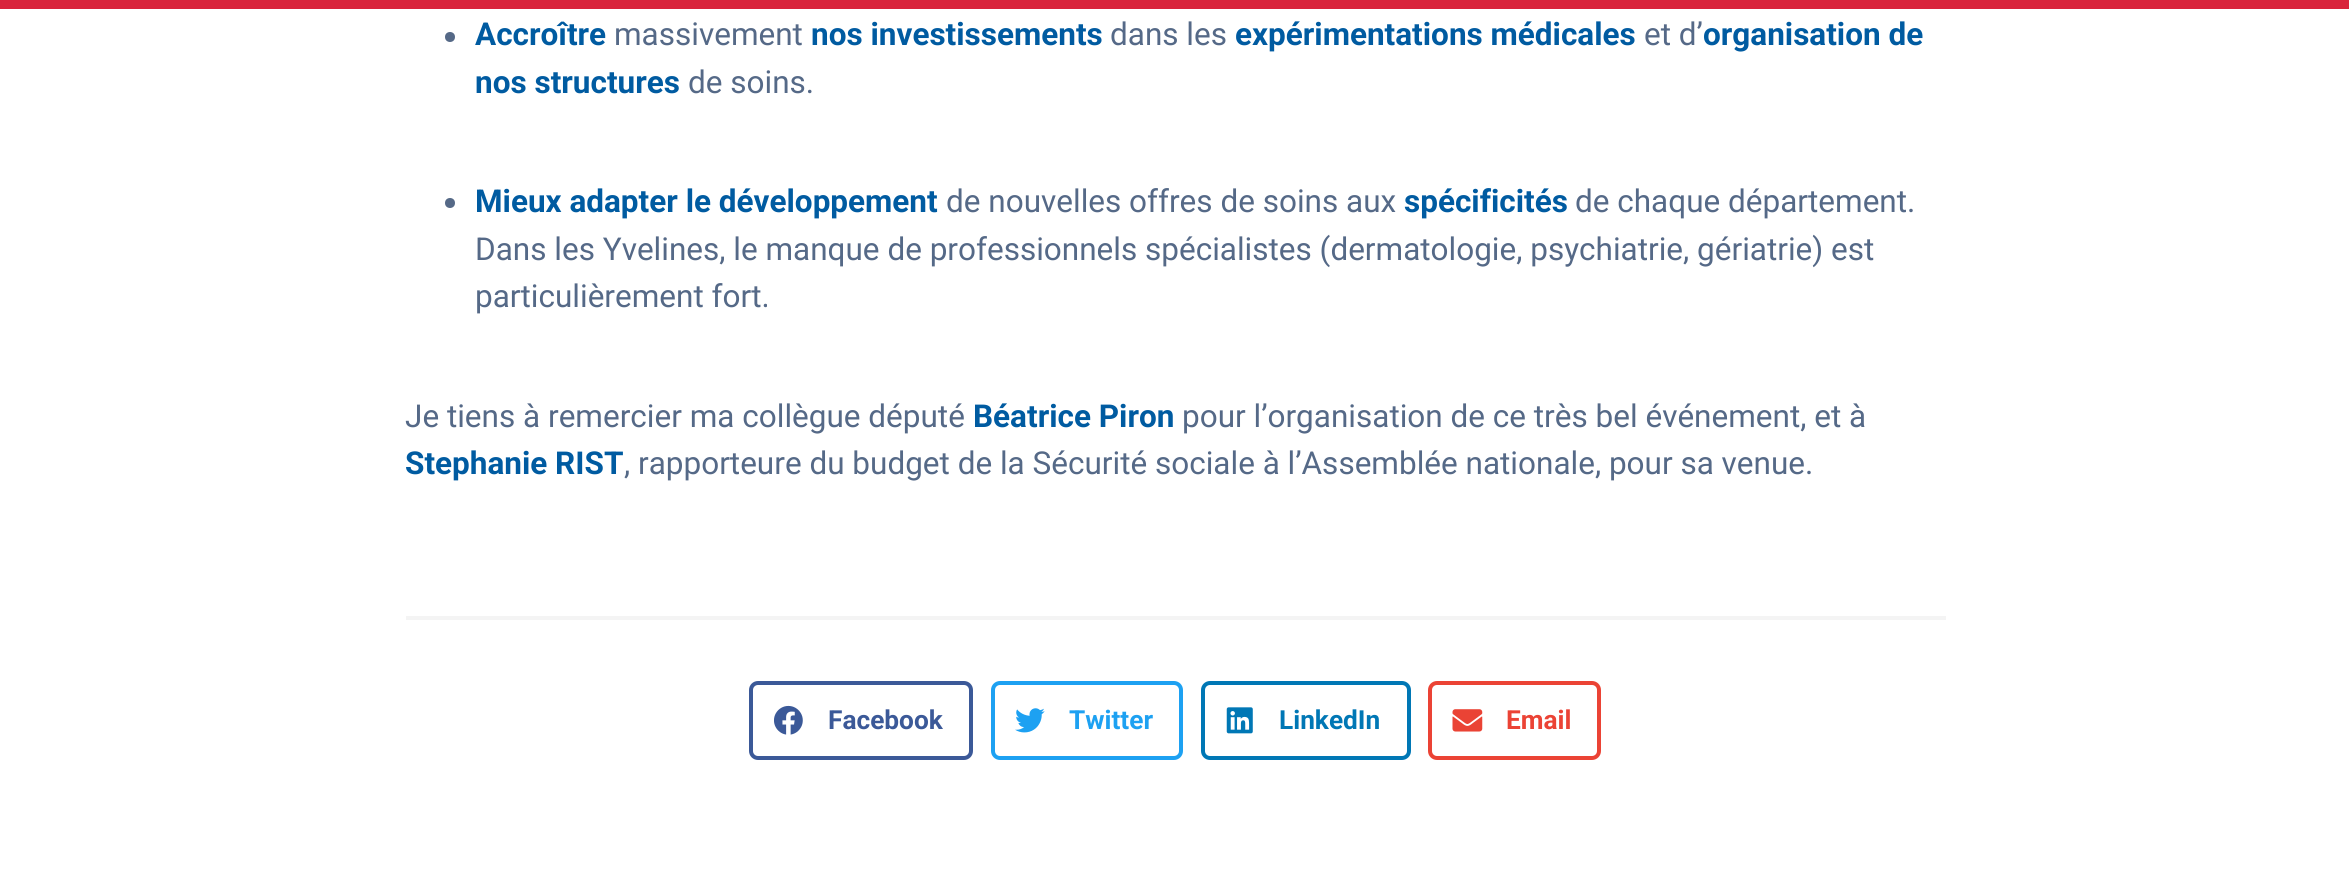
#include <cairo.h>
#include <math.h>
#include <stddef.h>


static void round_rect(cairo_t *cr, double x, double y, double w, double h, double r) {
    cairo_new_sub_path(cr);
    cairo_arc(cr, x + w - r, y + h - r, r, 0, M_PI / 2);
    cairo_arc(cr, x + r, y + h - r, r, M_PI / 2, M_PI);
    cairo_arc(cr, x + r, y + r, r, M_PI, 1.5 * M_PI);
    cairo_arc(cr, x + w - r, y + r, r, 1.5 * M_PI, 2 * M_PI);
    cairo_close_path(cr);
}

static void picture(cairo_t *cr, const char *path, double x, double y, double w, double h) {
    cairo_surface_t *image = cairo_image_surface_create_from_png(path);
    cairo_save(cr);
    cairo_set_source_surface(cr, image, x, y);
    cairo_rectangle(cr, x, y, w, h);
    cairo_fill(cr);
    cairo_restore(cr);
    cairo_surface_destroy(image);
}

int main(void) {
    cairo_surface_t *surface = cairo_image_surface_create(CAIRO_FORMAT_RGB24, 2349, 890);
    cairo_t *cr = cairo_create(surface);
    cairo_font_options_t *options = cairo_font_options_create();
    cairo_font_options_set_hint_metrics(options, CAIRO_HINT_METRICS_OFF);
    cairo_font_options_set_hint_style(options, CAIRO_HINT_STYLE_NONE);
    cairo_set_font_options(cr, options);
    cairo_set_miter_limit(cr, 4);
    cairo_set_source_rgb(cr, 1, 1, 1);
    cairo_paint(cr);
    cairo_set_source_rgb(cr, 0.851, 0.141, 0.235);
    cairo_rectangle(cr, 0, 0, 2349, 9);
    cairo_fill(cr);
    cairo_set_source_rgb(cr, 0.333, 0.412, 0.529);
    cairo_arc(cr, 450, 37, 5, 0, 2 * M_PI);
    cairo_fill(cr);
    cairo_select_font_face(cr, "Roboto", CAIRO_FONT_SLANT_NORMAL, CAIRO_FONT_WEIGHT_BOLD);
    cairo_set_font_size(cr, 31.5);
    cairo_set_source_rgb(cr, 0, 0.357, 0.631);
    cairo_move_to(cr, 475, 45);
    cairo_show_text(cr, "Accroître");
    cairo_select_font_face(cr, "Roboto", CAIRO_FONT_SLANT_NORMAL, CAIRO_FONT_WEIGHT_NORMAL);
    cairo_set_source_rgb(cr, 0.333, 0.412, 0.529);
    cairo_move_to(cr, 614, 45);
    cairo_show_text(cr, "massivement");
    cairo_select_font_face(cr, "Roboto", CAIRO_FONT_SLANT_NORMAL, CAIRO_FONT_WEIGHT_BOLD);
    cairo_set_source_rgb(cr, 0, 0.357, 0.631);
    cairo_move_to(cr, 811, 45);
    cairo_show_text(cr, "nos investissements");
    cairo_select_font_face(cr, "Roboto", CAIRO_FONT_SLANT_NORMAL, CAIRO_FONT_WEIGHT_NORMAL);
    cairo_set_source_rgb(cr, 0.333, 0.412, 0.529);
    cairo_move_to(cr, 1110, 45);
    cairo_show_text(cr, "dans les");
    cairo_select_font_face(cr, "Roboto", CAIRO_FONT_SLANT_NORMAL, CAIRO_FONT_WEIGHT_BOLD);
    cairo_set_source_rgb(cr, 0, 0.357, 0.631);
    cairo_move_to(cr, 1235, 45);
    cairo_show_text(cr, "expérimentations médicales");
    cairo_select_font_face(cr, "Roboto", CAIRO_FONT_SLANT_NORMAL, CAIRO_FONT_WEIGHT_NORMAL);
    cairo_set_source_rgb(cr, 0.333, 0.412, 0.529);
    cairo_move_to(cr, 1644, 45);
    cairo_show_text(cr, "et d’");
    cairo_select_font_face(cr, "Roboto", CAIRO_FONT_SLANT_NORMAL, CAIRO_FONT_WEIGHT_BOLD);
    cairo_set_source_rgb(cr, 0, 0.357, 0.631);
    cairo_move_to(cr, 1703, 45);
    cairo_show_text(cr, "organisation de");
    cairo_move_to(cr, 475, 93);
    cairo_show_text(cr, "nos structures");
    cairo_select_font_face(cr, "Roboto", CAIRO_FONT_SLANT_NORMAL, CAIRO_FONT_WEIGHT_NORMAL);
    cairo_set_source_rgb(cr, 0.333, 0.412, 0.529);
    cairo_move_to(cr, 688, 93);
    cairo_show_text(cr, "de soins.");
    cairo_new_path(cr);
    cairo_arc(cr, 450, 203, 5, 0, 2 * M_PI);
    cairo_fill(cr);
    cairo_select_font_face(cr, "Roboto", CAIRO_FONT_SLANT_NORMAL, CAIRO_FONT_WEIGHT_BOLD);
    cairo_set_source_rgb(cr, 0, 0.357, 0.631);
    cairo_move_to(cr, 475, 212);
    cairo_show_text(cr, "Mieux adapter le développement");
    cairo_select_font_face(cr, "Roboto", CAIRO_FONT_SLANT_NORMAL, CAIRO_FONT_WEIGHT_NORMAL);
    cairo_set_source_rgb(cr, 0.333, 0.412, 0.529);
    cairo_move_to(cr, 946, 212);
    cairo_show_text(cr, "de nouvelles offres de soins aux");
    cairo_select_font_face(cr, "Roboto", CAIRO_FONT_SLANT_NORMAL, CAIRO_FONT_WEIGHT_BOLD);
    cairo_set_source_rgb(cr, 0, 0.357, 0.631);
    cairo_move_to(cr, 1404, 212);
    cairo_show_text(cr, "spécificités");
    cairo_select_font_face(cr, "Roboto", CAIRO_FONT_SLANT_NORMAL, CAIRO_FONT_WEIGHT_NORMAL);
    cairo_set_source_rgb(cr, 0.333, 0.412, 0.529);
    cairo_move_to(cr, 1575, 212);
    cairo_show_text(cr, "de chaque département.");
    cairo_move_to(cr, 475, 260);
    cairo_show_text(cr, "Dans les Yvelines, le manque de professionnels spécialistes (dermatologie, psychiatrie, gériatrie) est");
    cairo_move_to(cr, 475, 307);
    cairo_show_text(cr, "particulièrement fort.");
    cairo_move_to(cr, 405, 427);
    cairo_show_text(cr, "Je tiens à remercier ma collègue député");
    cairo_select_font_face(cr, "Roboto", CAIRO_FONT_SLANT_NORMAL, CAIRO_FONT_WEIGHT_BOLD);
    cairo_set_source_rgb(cr, 0, 0.357, 0.631);
    cairo_move_to(cr, 973, 427);
    cairo_show_text(cr, "Béatrice Piron");
    cairo_select_font_face(cr, "Roboto", CAIRO_FONT_SLANT_NORMAL, CAIRO_FONT_WEIGHT_NORMAL);
    cairo_set_source_rgb(cr, 0.333, 0.412, 0.529);
    cairo_move_to(cr, 1182, 427);
    cairo_show_text(cr, "pour l’organisation de ce très bel événement, et à");
    cairo_select_font_face(cr, "Roboto", CAIRO_FONT_SLANT_NORMAL, CAIRO_FONT_WEIGHT_BOLD);
    cairo_set_source_rgb(cr, 0, 0.357, 0.631);
    cairo_move_to(cr, 405, 474);
    cairo_show_text(cr, "Stephanie RIST");
    cairo_select_font_face(cr, "Roboto", CAIRO_FONT_SLANT_NORMAL, CAIRO_FONT_WEIGHT_NORMAL);
    cairo_set_source_rgb(cr, 0.333, 0.412, 0.529);
    cairo_move_to(cr, 624, 474);
    cairo_show_text(cr, ", rapporteure du budget de la Sécurité sociale à l’Assemblée nationale, pour sa venue.");
    cairo_set_source_rgb(cr, 0.957, 0.957, 0.957);
    cairo_rectangle(cr, 406, 616, 1540, 4);
    cairo_fill(cr);
    round_rect(cr, 751, 683, 220, 75, 7);
    cairo_set_source_rgb(cr, 0.231, 0.349, 0.596);
    cairo_set_line_width(cr, 4);
    cairo_stroke(cr);
    picture(cr, "img1.png", 774, 705, 29, 30);
    cairo_select_font_face(cr, "Roboto", CAIRO_FONT_SLANT_NORMAL, CAIRO_FONT_WEIGHT_BOLD);
    cairo_set_font_size(cr, 26.25);
    cairo_move_to(cr, 828, 729);
    cairo_show_text(cr, "Facebook");
    round_rect(cr, 993, 683, 188, 75, 7);
    cairo_set_source_rgb(cr, 0.114, 0.631, 0.949);
    cairo_stroke(cr);
    picture(cr, "img2.png", 1015, 708, 30, 25);
    cairo_move_to(cr, 1069, 729);
    cairo_show_text(cr, "Twitter");
    round_rect(cr, 1203, 683, 206, 75, 7);
    cairo_set_source_rgb(cr, 0, 0.467, 0.71);
    cairo_stroke(cr);
    picture(cr, "img3.png", 1226, 707, 27, 27);
    cairo_move_to(cr, 1279, 729);
    cairo_show_text(cr, "LinkedIn");
    round_rect(cr, 1430, 683, 169, 75, 7);
    cairo_set_source_rgb(cr, 0.918, 0.263, 0.208);
    cairo_stroke(cr);
    picture(cr, "img4.png", 1452, 709, 31, 23);
    cairo_move_to(cr, 1506, 729);
    cairo_show_text(cr, "Email");
    cairo_surface_write_to_png(surface, "page.png");
    cairo_font_options_destroy(options);
    cairo_destroy(cr);
    cairo_surface_destroy(surface);
    return 0;
}
